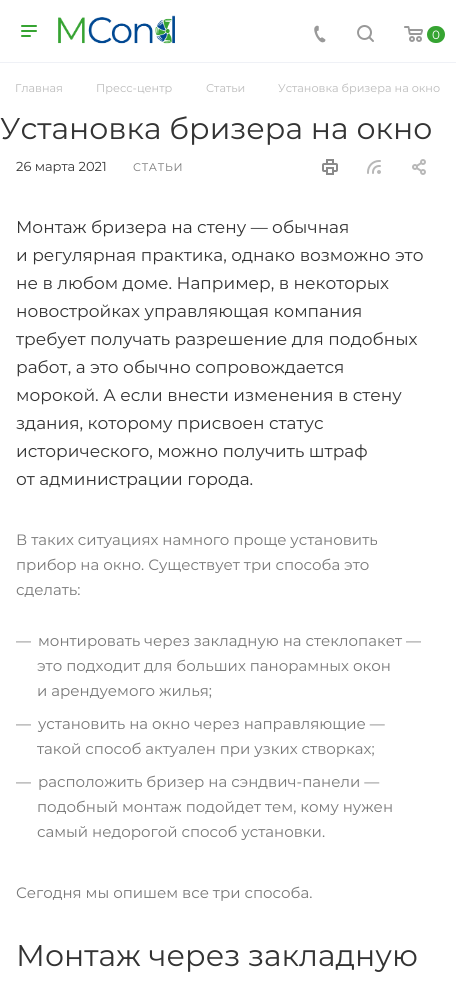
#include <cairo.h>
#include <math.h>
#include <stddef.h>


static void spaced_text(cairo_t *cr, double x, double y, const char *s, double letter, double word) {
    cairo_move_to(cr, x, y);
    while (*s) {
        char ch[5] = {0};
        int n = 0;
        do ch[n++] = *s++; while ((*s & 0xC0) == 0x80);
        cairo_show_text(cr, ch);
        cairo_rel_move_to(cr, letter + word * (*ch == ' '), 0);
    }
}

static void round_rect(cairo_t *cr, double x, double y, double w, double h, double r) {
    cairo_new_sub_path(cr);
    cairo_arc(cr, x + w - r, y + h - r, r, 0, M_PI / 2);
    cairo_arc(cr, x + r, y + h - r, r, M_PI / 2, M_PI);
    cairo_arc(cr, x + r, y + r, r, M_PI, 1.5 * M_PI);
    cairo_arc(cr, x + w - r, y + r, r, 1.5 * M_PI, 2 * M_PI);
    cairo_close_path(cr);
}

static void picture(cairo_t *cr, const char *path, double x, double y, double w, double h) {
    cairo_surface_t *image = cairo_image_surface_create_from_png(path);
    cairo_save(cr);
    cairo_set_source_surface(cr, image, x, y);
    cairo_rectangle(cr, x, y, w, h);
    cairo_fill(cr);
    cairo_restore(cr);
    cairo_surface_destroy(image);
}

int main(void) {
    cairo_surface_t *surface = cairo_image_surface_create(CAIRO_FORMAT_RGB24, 456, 996);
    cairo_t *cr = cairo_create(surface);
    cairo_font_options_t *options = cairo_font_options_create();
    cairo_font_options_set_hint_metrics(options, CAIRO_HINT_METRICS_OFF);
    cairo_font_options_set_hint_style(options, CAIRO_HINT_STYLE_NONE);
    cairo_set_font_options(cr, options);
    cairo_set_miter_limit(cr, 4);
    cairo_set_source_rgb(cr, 1, 1, 1);
    cairo_paint(cr);
    cairo_set_source_rgb(cr, 0.937, 0.945, 0.961);
    cairo_rectangle(cr, 0, 62, 456, 1);
    cairo_fill(cr);
    picture(cr, "img1.png", 21, 25, 16, 12);
    picture(cr, "img2.png", 58, 15, 117, 29);
    picture(cr, "img3.png", 314, 25, 12, 18);
    picture(cr, "img4.png", 357, 25, 17, 17);
    picture(cr, "img5.png", 404, 26, 19, 16);
    cairo_set_source_rgb(cr, 0.212, 0.643, 0.196);
    round_rect(cr, 427, 26, 18, 17, 8.5);
    cairo_fill(cr);
    cairo_select_font_face(cr, "Montserrat", CAIRO_FONT_SLANT_NORMAL, CAIRO_FONT_WEIGHT_NORMAL);
    cairo_set_font_size(cr, 12);
    cairo_set_source_rgb(cr, 1, 1, 1);
    cairo_move_to(cr, 432, 39);
    cairo_show_text(cr, "0");
    cairo_set_font_size(cr, 11.25);
    cairo_set_source_rgb(cr, 0.733, 0.733, 0.733);
    cairo_move_to(cr, 15, 92);
    cairo_show_text(cr, "Главная");
    cairo_move_to(cr, 96, 92);
    cairo_show_text(cr, "Пресс-центр");
    cairo_move_to(cr, 206, 92);
    cairo_show_text(cr, "Статьи");
    cairo_move_to(cr, 278, 92);
    cairo_show_text(cr, "Установка бризера на окно");
    cairo_set_font_size(cr, 30);
    cairo_set_source_rgb(cr, 0.2, 0.2, 0.2);
    cairo_move_to(cr, 0, 139);
    cairo_show_text(cr, "Установка бризера на окно");
    cairo_set_font_size(cr, 13);
    cairo_move_to(cr, 16, 171);
    cairo_show_text(cr, "26 марта 2021");
    cairo_set_font_size(cr, 11);
    cairo_set_source_rgb(cr, 0.467, 0.467, 0.467);
    spaced_text(cr, 133, 171, "СТАТЬИ", 0.75, 0);
    picture(cr, "img6.png", 322, 159, 16, 16);
    picture(cr, "img7.png", 322, 159, 16, 16);
    picture(cr, "img8.png", 367, 160, 14, 14);
    picture(cr, "img9.png", 412, 159, 14, 16);
    cairo_set_font_size(cr, 17);
    cairo_set_source_rgb(cr, 0.2, 0.2, 0.2);
    cairo_move_to(cr, 16, 233);
    cairo_show_text(cr, "Монтаж бризера на стену — обычная");
    cairo_move_to(cr, 16, 261);
    cairo_show_text(cr, "и регулярная практика, однако возможно это");
    cairo_move_to(cr, 16, 289);
    cairo_show_text(cr, "не в любом доме. Например, в некоторых");
    cairo_move_to(cr, 16, 317);
    cairo_show_text(cr, "новостройках управляющая компания");
    cairo_move_to(cr, 16, 345);
    cairo_show_text(cr, "требует получать разрешение для подобных");
    cairo_move_to(cr, 16, 373);
    cairo_show_text(cr, "работ, а это обычно сопровождается");
    cairo_move_to(cr, 16, 401);
    cairo_show_text(cr, "морокой. А если внести изменения в стену");
    cairo_move_to(cr, 16, 429);
    cairo_show_text(cr, "здания, которому присвоен статус");
    cairo_move_to(cr, 16, 457);
    cairo_show_text(cr, "исторического, можно получить штраф");
    cairo_move_to(cr, 16, 485);
    cairo_show_text(cr, "от администрации города.");
    cairo_set_font_size(cr, 15);
    cairo_set_source_rgb(cr, 0.467, 0.467, 0.467);
    cairo_move_to(cr, 16, 545);
    cairo_show_text(cr, "В таких ситуациях намного проще установить");
    cairo_move_to(cr, 16, 570);
    cairo_show_text(cr, "прибор на окно. Существует три способа это");
    cairo_move_to(cr, 16, 595);
    cairo_show_text(cr, "сделать:");
    cairo_move_to(cr, 16, 646);
    cairo_show_text(cr, "—");
    cairo_move_to(cr, 38, 646);
    cairo_show_text(cr, "монтировать через закладную на стеклопакет —");
    cairo_move_to(cr, 37, 671);
    cairo_show_text(cr, "это подходит для больших панорамных окон");
    cairo_move_to(cr, 37, 696);
    cairo_show_text(cr, "и арендуемого жилья;");
    cairo_move_to(cr, 16, 729);
    cairo_show_text(cr, "—");
    cairo_move_to(cr, 38, 729);
    cairo_show_text(cr, "установить на окно через направляющие —");
    cairo_move_to(cr, 37, 754);
    cairo_show_text(cr, "такой способ актуален при узких створках;");
    cairo_move_to(cr, 16, 787);
    cairo_show_text(cr, "—");
    cairo_move_to(cr, 38, 787);
    cairo_show_text(cr, "расположить бризер на сэндвич-панели —");
    cairo_move_to(cr, 37, 812);
    cairo_show_text(cr, "подобный монтаж подойдет тем, кому нужен");
    cairo_move_to(cr, 37, 837);
    cairo_show_text(cr, "самый недорогой способ установки.");
    cairo_move_to(cr, 16, 898);
    cairo_show_text(cr, "Сегодня мы опишем все три способа.");
    cairo_set_font_size(cr, 30);
    cairo_set_source_rgb(cr, 0.2, 0.2, 0.2);
    cairo_move_to(cr, 16, 966);
    cairo_show_text(cr, "Монтаж через закладную");
    cairo_surface_write_to_png(surface, "page.png");
    cairo_font_options_destroy(options);
    cairo_destroy(cr);
    cairo_surface_destroy(surface);
    return 0;
}
